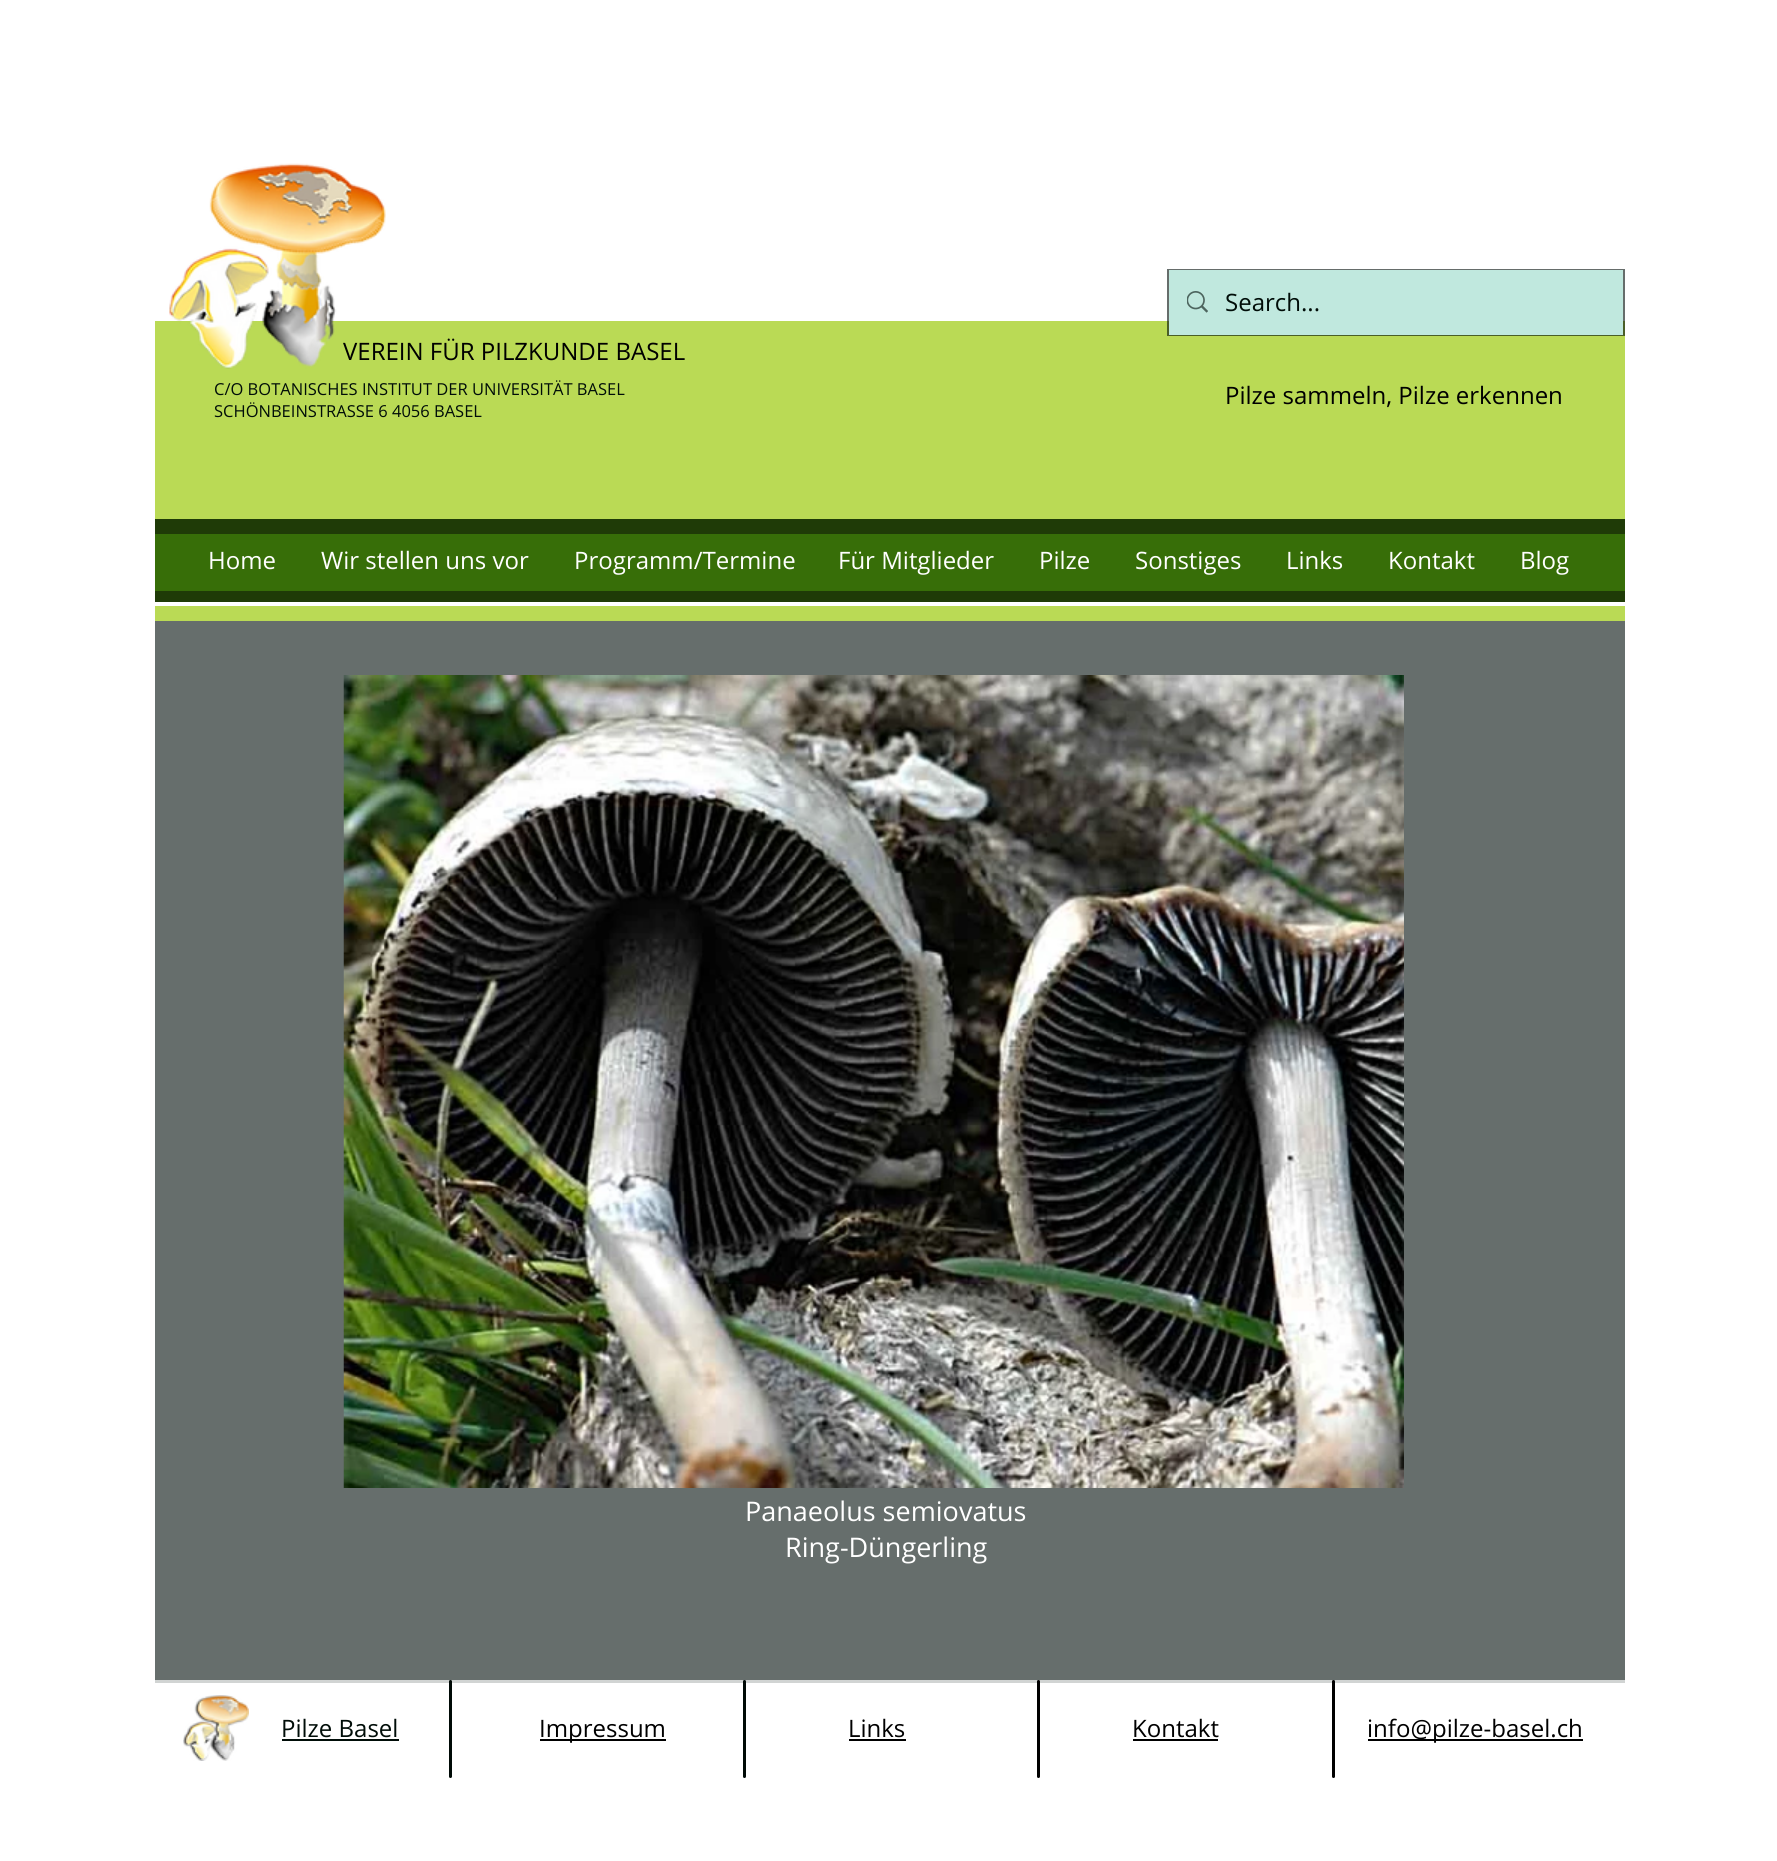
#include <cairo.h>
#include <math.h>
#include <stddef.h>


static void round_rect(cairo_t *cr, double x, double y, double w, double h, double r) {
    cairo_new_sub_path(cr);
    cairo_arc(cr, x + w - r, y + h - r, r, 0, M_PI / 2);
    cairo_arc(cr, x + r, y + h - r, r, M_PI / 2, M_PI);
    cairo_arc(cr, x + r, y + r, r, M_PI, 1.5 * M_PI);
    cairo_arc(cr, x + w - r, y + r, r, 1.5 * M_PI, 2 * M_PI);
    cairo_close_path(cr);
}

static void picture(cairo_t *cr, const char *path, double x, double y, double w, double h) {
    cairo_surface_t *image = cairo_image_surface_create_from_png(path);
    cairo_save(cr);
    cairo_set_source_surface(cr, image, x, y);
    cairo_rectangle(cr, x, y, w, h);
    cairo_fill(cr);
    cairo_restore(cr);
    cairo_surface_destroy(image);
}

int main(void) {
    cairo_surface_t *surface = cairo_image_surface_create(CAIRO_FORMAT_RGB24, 1777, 1861);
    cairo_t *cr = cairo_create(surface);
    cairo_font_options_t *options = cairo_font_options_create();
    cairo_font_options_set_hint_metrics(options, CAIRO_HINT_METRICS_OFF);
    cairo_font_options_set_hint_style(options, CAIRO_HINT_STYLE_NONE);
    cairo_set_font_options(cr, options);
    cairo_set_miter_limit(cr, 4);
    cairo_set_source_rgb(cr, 1, 1, 1);
    cairo_paint(cr);
    cairo_set_source_rgb(cr, 0.729, 0.855, 0.333);
    cairo_rectangle(cr, 155, 321, 1470, 198);
    cairo_fill(cr);
    cairo_select_font_face(cr, "Open Sans", CAIRO_FONT_SLANT_NORMAL, CAIRO_FONT_WEIGHT_NORMAL);
    cairo_set_font_size(cr, 24);
    cairo_set_source_rgb(cr, 0, 0, 0);
    cairo_move_to(cr, 343, 360);
    cairo_show_text(cr, "VEREIN FÜR PILZKUNDE BASEL");
    picture(cr, "img1.png", 169, 163, 217, 206);
    cairo_rectangle(cr, 1168, 270, 456, 65);
    cairo_set_source_rgba(cr, 0, 0.051, 0.035, 0.6);
    cairo_stroke(cr);
    cairo_set_source_rgb(cr, 0.753, 0.91, 0.871);
    cairo_rectangle(cr, 1169, 270, 454, 65);
    cairo_fill(cr);
    picture(cr, "img2.png", 1187, 291, 21, 22);
    cairo_set_source_rgb(cr, 0, 0.051, 0.035);
    cairo_move_to(cr, 1225, 311);
    cairo_show_text(cr, "Search...");
    cairo_set_font_size(cr, 16.5);
    cairo_move_to(cr, 214, 395);
    cairo_show_text(cr, "C/O BOTANISCHES INSTITUT DER UNIVERSITÄT BASEL");
    cairo_move_to(cr, 214, 417);
    cairo_show_text(cr, "SCHÖNBEINSTRASSE 6 4056 BASEL");
    cairo_set_font_size(cr, 24);
    cairo_set_source_rgb(cr, 0, 0, 0);
    cairo_move_to(cr, 1225, 404);
    cairo_show_text(cr, "Pilze sammeln, Pilze erkennen");
    cairo_set_source_rgb(cr, 0.122, 0.231, 0.031);
    cairo_rectangle(cr, 155, 519, 1470, 15);
    cairo_fill(cr);
    cairo_set_source_rgb(cr, 0.216, 0.431, 0.035);
    cairo_rectangle(cr, 155, 534, 1470, 57);
    cairo_fill(cr);
    cairo_set_source_rgb(cr, 1, 1, 1);
    cairo_move_to(cr, 208, 569);
    cairo_show_text(cr, "Home");
    cairo_move_to(cr, 321, 569);
    cairo_show_text(cr, "Wir stellen uns vor");
    cairo_move_to(cr, 574, 569);
    cairo_show_text(cr, "Programm/Termine");
    cairo_move_to(cr, 838, 569);
    cairo_show_text(cr, "Für Mitglieder");
    cairo_move_to(cr, 1039, 569);
    cairo_show_text(cr, "Pilze");
    cairo_move_to(cr, 1135, 569);
    cairo_show_text(cr, "Sonstiges");
    cairo_move_to(cr, 1286, 569);
    cairo_show_text(cr, "Links");
    cairo_move_to(cr, 1388, 569);
    cairo_show_text(cr, "Kontakt");
    cairo_move_to(cr, 1520, 569);
    cairo_show_text(cr, "Blog");
    cairo_set_source_rgb(cr, 0.122, 0.231, 0.031);
    cairo_rectangle(cr, 155, 591, 1470, 11);
    cairo_fill(cr);
    cairo_set_source_rgb(cr, 0.729, 0.855, 0.333);
    cairo_rectangle(cr, 155, 606, 1470, 15);
    cairo_fill(cr);
    cairo_set_source_rgb(cr, 0.4, 0.431, 0.424);
    cairo_rectangle(cr, 155, 621, 1470, 1059);
    cairo_fill(cr);
    cairo_set_font_size(cr, 27);
    cairo_set_source_rgb(cr, 1, 1, 1);
    cairo_move_to(cr, 745, 1521);
    cairo_show_text(cr, "Panaeolus semiovatus");
    cairo_set_source_rgb(cr, 0.82, 0.831, 0.827);
    cairo_rectangle(cr, 155, 1680, 1470, 3);
    cairo_fill(cr);
    picture(cr, "img3.png", 343, 675, 1061, 813);
    cairo_set_source_rgb(cr, 1, 1, 1);
    cairo_move_to(cr, 785, 1557);
    cairo_show_text(cr, "Ring-Düngerling");
    picture(cr, "img4.png", 183, 1695, 66, 66);
    cairo_set_font_size(cr, 24);
    cairo_set_source_rgb(cr, 0, 0.051, 0.035);
    cairo_move_to(cr, 281, 1737);
    cairo_show_text(cr, "Pilze Basel");
    cairo_rectangle(cr, 282, 1739, 117, 2);
    cairo_fill(cr);
    cairo_set_source_rgba(cr, 1, 1, 1, 0.1);
    cairo_new_path(cr);
    cairo_move_to(cr, 452, 1682);
    cairo_line_to(cr, 452, 1776);
    cairo_curve_to(cr, 452, 1777, 451, 1778, 450, 1778);
    cairo_curve_to(cr, 450, 1779, 453, 1779, 453, 1778);
    cairo_line_to(cr, 453, 1746);
    cairo_curve_to(cr, 453, 1740, 453, 1683, 453, 1682);
    cairo_close_path(cr);
    cairo_fill(cr);
    cairo_set_source_rgb(cr, 0, 0.051, 0.035);
    round_rect(cr, 449, 1680, 3, 98, 1.5);
    cairo_fill(cr);
    cairo_set_source_rgba(cr, 0, 0, 0, 0.25);
    cairo_new_path(cr);
    cairo_move_to(cr, 450, 1680);
    cairo_curve_to(cr, 450, 1680, 449, 1681, 449, 1682);
    cairo_line_to(cr, 449, 1776);
    cairo_curve_to(cr, 449, 1777, 450, 1778, 450, 1778);
    cairo_curve_to(cr, 451, 1778, 452, 1777, 452, 1776);
    cairo_line_to(cr, 452, 1682);
    cairo_curve_to(cr, 452, 1681, 451, 1680, 450, 1680);
    cairo_close_path(cr);
    cairo_fill(cr);
    cairo_set_source_rgb(cr, 0, 0, 0);
    cairo_rectangle(cr, 540, 1739, 126, 2);
    cairo_fill(cr);
    cairo_move_to(cr, 539, 1737);
    cairo_show_text(cr, "Impressum");
    cairo_set_source_rgba(cr, 1, 1, 1, 0.1);
    cairo_new_path(cr);
    cairo_move_to(cr, 746, 1682);
    cairo_line_to(cr, 746, 1776);
    cairo_curve_to(cr, 746, 1777, 745, 1778, 744, 1778);
    cairo_curve_to(cr, 744, 1779, 747, 1779, 747, 1778);
    cairo_line_to(cr, 747, 1746);
    cairo_curve_to(cr, 747, 1740, 747, 1683, 747, 1682);
    cairo_close_path(cr);
    cairo_fill(cr);
    cairo_set_source_rgb(cr, 0, 0.051, 0.035);
    round_rect(cr, 743, 1680, 3, 98, 1.5);
    cairo_fill(cr);
    cairo_set_source_rgba(cr, 0, 0, 0, 0.25);
    cairo_new_path(cr);
    cairo_move_to(cr, 744, 1680);
    cairo_curve_to(cr, 744, 1680, 743, 1681, 743, 1682);
    cairo_line_to(cr, 743, 1776);
    cairo_curve_to(cr, 743, 1777, 744, 1778, 744, 1778);
    cairo_curve_to(cr, 745, 1778, 746, 1777, 746, 1776);
    cairo_line_to(cr, 746, 1682);
    cairo_curve_to(cr, 746, 1681, 745, 1680, 744, 1680);
    cairo_close_path(cr);
    cairo_fill(cr);
    cairo_set_source_rgb(cr, 0, 0, 0);
    cairo_move_to(cr, 848, 1737);
    cairo_show_text(cr, "Links");
    cairo_rectangle(cr, 849, 1739, 57, 2);
    cairo_fill(cr);
    cairo_set_source_rgba(cr, 1, 1, 1, 0.1);
    cairo_new_path(cr);
    cairo_move_to(cr, 1040, 1682);
    cairo_line_to(cr, 1040, 1776);
    cairo_curve_to(cr, 1040, 1777, 1039, 1778, 1038, 1778);
    cairo_curve_to(cr, 1038, 1779, 1041, 1779, 1041, 1778);
    cairo_line_to(cr, 1041, 1746);
    cairo_curve_to(cr, 1041, 1740, 1041, 1683, 1041, 1682);
    cairo_close_path(cr);
    cairo_fill(cr);
    cairo_set_source_rgb(cr, 0, 0, 0);
    round_rect(cr, 1037, 1680, 3, 98, 1.5);
    cairo_fill(cr);
    cairo_set_source_rgba(cr, 0, 0, 0, 0.25);
    cairo_new_path(cr);
    cairo_move_to(cr, 1038, 1680);
    cairo_curve_to(cr, 1038, 1680, 1037, 1681, 1037, 1682);
    cairo_line_to(cr, 1037, 1776);
    cairo_curve_to(cr, 1037, 1777, 1038, 1778, 1038, 1778);
    cairo_curve_to(cr, 1039, 1778, 1040, 1777, 1040, 1776);
    cairo_line_to(cr, 1040, 1682);
    cairo_curve_to(cr, 1040, 1681, 1039, 1680, 1038, 1680);
    cairo_close_path(cr);
    cairo_fill(cr);
    cairo_set_source_rgb(cr, 0, 0, 0);
    cairo_move_to(cr, 1132, 1737);
    cairo_show_text(cr, "Kontakt");
    cairo_rectangle(cr, 1133, 1739, 85, 2);
    cairo_fill(cr);
    cairo_set_source_rgba(cr, 1, 1, 1, 0.1);
    cairo_new_path(cr);
    cairo_move_to(cr, 1336, 1682);
    cairo_line_to(cr, 1335, 1682);
    cairo_line_to(cr, 1335, 1776);
    cairo_line_to(cr, 1334, 1777);
    cairo_curve_to(cr, 1334, 1779, 1337, 1779, 1337, 1778);
    cairo_line_to(cr, 1337, 1746);
    cairo_curve_to(cr, 1337, 1740, 1337, 1683, 1337, 1682);
    cairo_close_path(cr);
    cairo_fill(cr);
    cairo_set_source_rgb(cr, 0, 0, 0);
    round_rect(cr, 1332, 1680, 3, 98, 1.5);
    cairo_fill(cr);
    cairo_set_source_rgba(cr, 0, 0, 0, 0.25);
    cairo_new_path(cr);
    cairo_move_to(cr, 1334, 1680);
    cairo_curve_to(cr, 1333, 1680, 1332, 1681, 1332, 1682);
    cairo_line_to(cr, 1332, 1776);
    cairo_curve_to(cr, 1332, 1777, 1333, 1778, 1334, 1778);
    cairo_curve_to(cr, 1334, 1778, 1335, 1777, 1335, 1776);
    cairo_line_to(cr, 1335, 1682);
    cairo_curve_to(cr, 1335, 1681, 1334, 1680, 1334, 1680);
    cairo_close_path(cr);
    cairo_fill(cr);
    cairo_set_source_rgb(cr, 0, 0, 0);
    cairo_rectangle(cr, 1368, 1739, 215, 2);
    cairo_fill(cr);
    cairo_move_to(cr, 1367, 1737);
    cairo_show_text(cr, "info@pilze-basel.ch");
    cairo_surface_write_to_png(surface, "page.png");
    cairo_font_options_destroy(options);
    cairo_destroy(cr);
    cairo_surface_destroy(surface);
    return 0;
}
